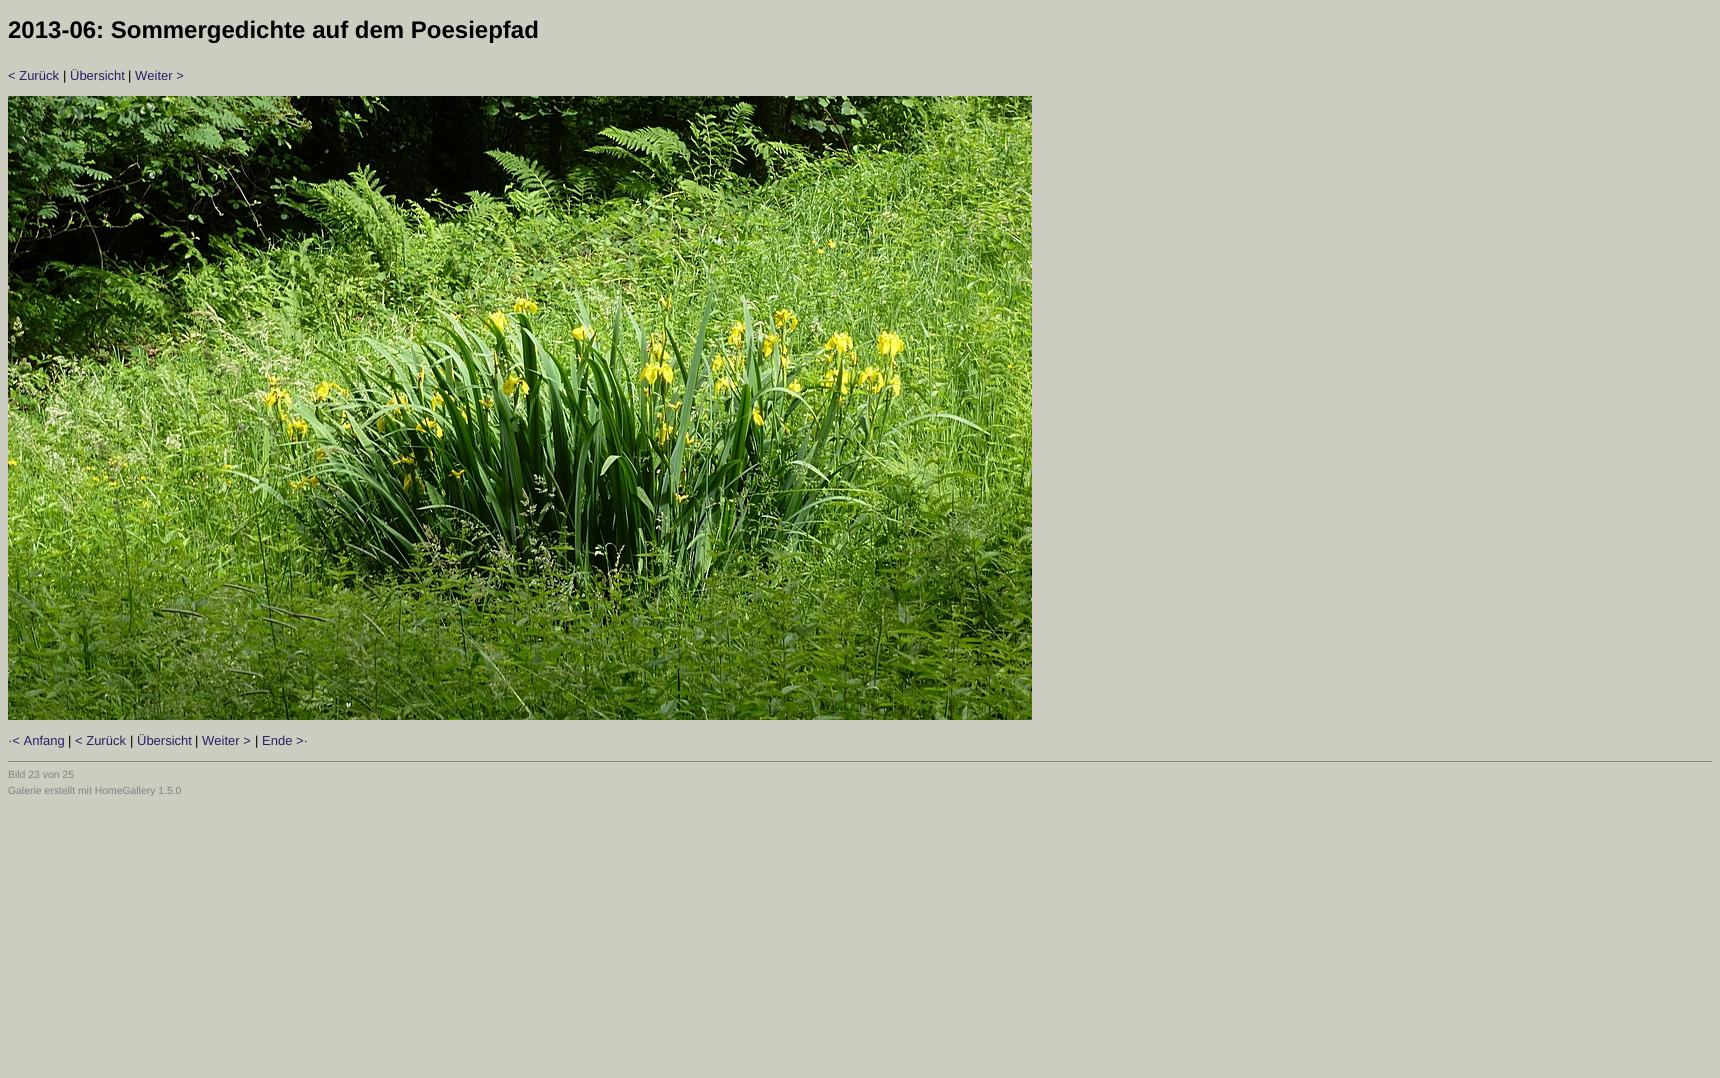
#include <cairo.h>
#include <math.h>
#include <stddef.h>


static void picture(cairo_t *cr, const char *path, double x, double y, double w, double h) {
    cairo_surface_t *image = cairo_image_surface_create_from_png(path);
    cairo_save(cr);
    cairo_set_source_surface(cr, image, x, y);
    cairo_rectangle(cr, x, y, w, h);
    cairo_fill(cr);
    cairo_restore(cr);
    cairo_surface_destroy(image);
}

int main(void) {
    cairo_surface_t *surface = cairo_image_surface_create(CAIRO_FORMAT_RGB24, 1720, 1078);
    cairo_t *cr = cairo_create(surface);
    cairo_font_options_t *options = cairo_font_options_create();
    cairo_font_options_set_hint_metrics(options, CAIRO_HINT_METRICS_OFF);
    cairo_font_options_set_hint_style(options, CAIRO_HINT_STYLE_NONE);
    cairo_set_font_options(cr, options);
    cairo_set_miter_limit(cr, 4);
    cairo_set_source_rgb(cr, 0.8, 0.8, 0.753);
    cairo_paint(cr);
    cairo_select_font_face(cr, "Liberation Sans", CAIRO_FONT_SLANT_NORMAL, CAIRO_FONT_WEIGHT_BOLD);
    cairo_set_font_size(cr, 24);
    cairo_set_source_rgb(cr, 0, 0, 0);
    cairo_move_to(cr, 8, 38);
    cairo_show_text(cr, "2013-06: Sommergedichte auf dem Poesiepfad");
    cairo_select_font_face(cr, "Liberation Sans", CAIRO_FONT_SLANT_NORMAL, CAIRO_FONT_WEIGHT_NORMAL);
    cairo_set_font_size(cr, 13);
    cairo_set_source_rgb(cr, 0.133, 0.133, 0.4);
    cairo_move_to(cr, 8, 80);
    cairo_show_text(cr, "< Zurück");
    cairo_set_source_rgb(cr, 0, 0, 0);
    cairo_move_to(cr, 63, 80);
    cairo_show_text(cr, "|");
    cairo_set_source_rgb(cr, 0.133, 0.133, 0.4);
    cairo_move_to(cr, 70, 80);
    cairo_show_text(cr, "Übersicht");
    cairo_set_source_rgb(cr, 0, 0, 0);
    cairo_move_to(cr, 128, 80);
    cairo_show_text(cr, "|");
    cairo_set_source_rgb(cr, 0.133, 0.133, 0.4);
    cairo_move_to(cr, 135, 80);
    cairo_show_text(cr, "Weiter >");
    picture(cr, "img1.png", 8, 96, 1024, 624);
    cairo_move_to(cr, 8, 745);
    cairo_show_text(cr, "·< Anfang");
    cairo_set_source_rgb(cr, 0, 0, 0);
    cairo_move_to(cr, 68, 745);
    cairo_show_text(cr, "|");
    cairo_set_source_rgb(cr, 0.133, 0.133, 0.4);
    cairo_move_to(cr, 75, 745);
    cairo_show_text(cr, "< Zurück");
    cairo_set_source_rgb(cr, 0, 0, 0);
    cairo_move_to(cr, 130, 745);
    cairo_show_text(cr, "|");
    cairo_set_source_rgb(cr, 0.133, 0.133, 0.4);
    cairo_move_to(cr, 137, 745);
    cairo_show_text(cr, "Übersicht");
    cairo_set_source_rgb(cr, 0, 0, 0);
    cairo_move_to(cr, 195, 745);
    cairo_show_text(cr, "|");
    cairo_set_source_rgb(cr, 0.133, 0.133, 0.4);
    cairo_move_to(cr, 202, 745);
    cairo_show_text(cr, "Weiter >");
    cairo_set_source_rgb(cr, 0, 0, 0);
    cairo_move_to(cr, 255, 745);
    cairo_show_text(cr, "|");
    cairo_set_source_rgb(cr, 0.133, 0.133, 0.4);
    cairo_move_to(cr, 262, 745);
    cairo_show_text(cr, "Ende >·");
    cairo_set_source_rgb(cr, 0.533, 0.533, 0.533);
    cairo_rectangle(cr, 8, 761, 1704, 1);
    cairo_fill(cr);
    cairo_set_font_size(cr, 10.4);
    cairo_set_source_rgb(cr, 0.502, 0.502, 0.502);
    cairo_move_to(cr, 8, 778);
    cairo_show_text(cr, "Bild 23 von 25");
    cairo_move_to(cr, 8, 794);
    cairo_show_text(cr, "Galerie erstellt mit HomeGallery 1.5.0");
    cairo_surface_write_to_png(surface, "page.png");
    cairo_font_options_destroy(options);
    cairo_destroy(cr);
    cairo_surface_destroy(surface);
    return 0;
}
